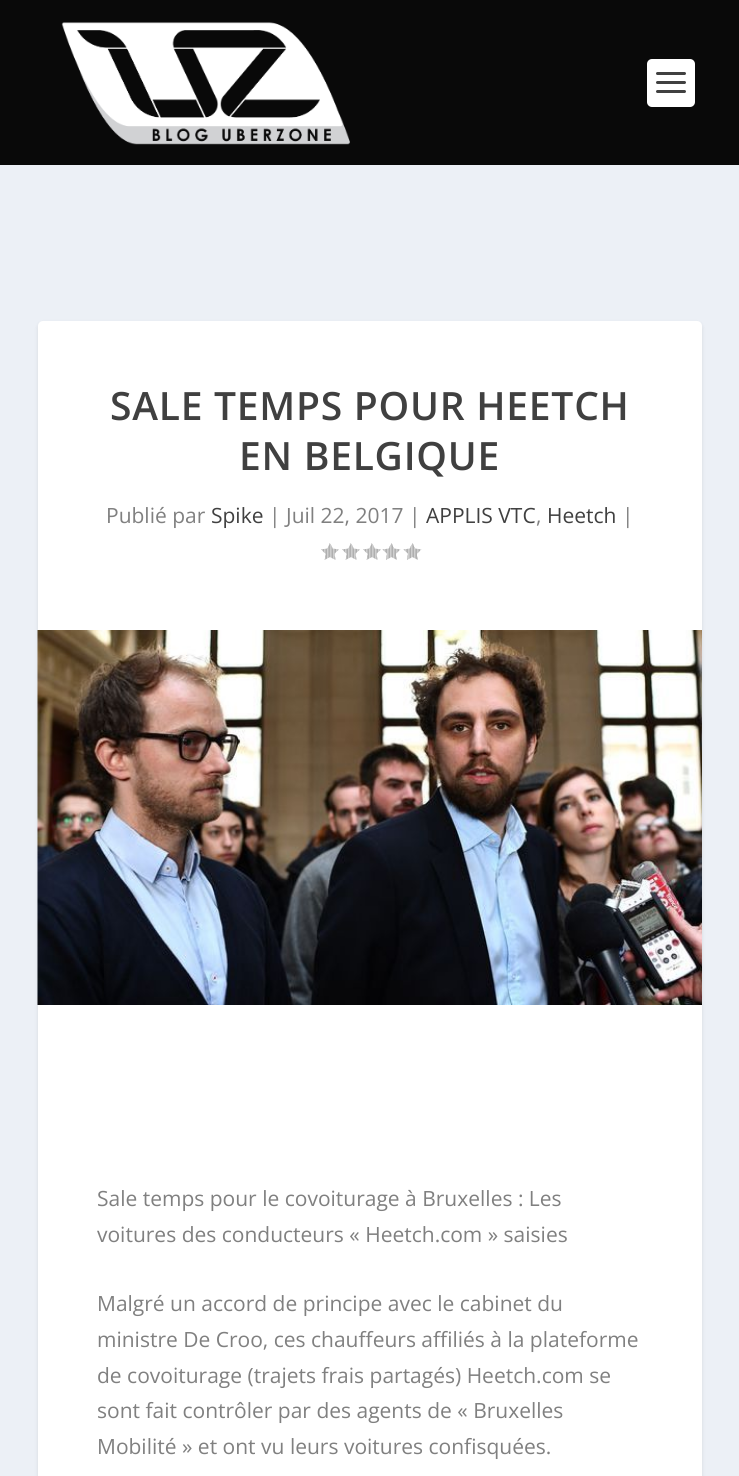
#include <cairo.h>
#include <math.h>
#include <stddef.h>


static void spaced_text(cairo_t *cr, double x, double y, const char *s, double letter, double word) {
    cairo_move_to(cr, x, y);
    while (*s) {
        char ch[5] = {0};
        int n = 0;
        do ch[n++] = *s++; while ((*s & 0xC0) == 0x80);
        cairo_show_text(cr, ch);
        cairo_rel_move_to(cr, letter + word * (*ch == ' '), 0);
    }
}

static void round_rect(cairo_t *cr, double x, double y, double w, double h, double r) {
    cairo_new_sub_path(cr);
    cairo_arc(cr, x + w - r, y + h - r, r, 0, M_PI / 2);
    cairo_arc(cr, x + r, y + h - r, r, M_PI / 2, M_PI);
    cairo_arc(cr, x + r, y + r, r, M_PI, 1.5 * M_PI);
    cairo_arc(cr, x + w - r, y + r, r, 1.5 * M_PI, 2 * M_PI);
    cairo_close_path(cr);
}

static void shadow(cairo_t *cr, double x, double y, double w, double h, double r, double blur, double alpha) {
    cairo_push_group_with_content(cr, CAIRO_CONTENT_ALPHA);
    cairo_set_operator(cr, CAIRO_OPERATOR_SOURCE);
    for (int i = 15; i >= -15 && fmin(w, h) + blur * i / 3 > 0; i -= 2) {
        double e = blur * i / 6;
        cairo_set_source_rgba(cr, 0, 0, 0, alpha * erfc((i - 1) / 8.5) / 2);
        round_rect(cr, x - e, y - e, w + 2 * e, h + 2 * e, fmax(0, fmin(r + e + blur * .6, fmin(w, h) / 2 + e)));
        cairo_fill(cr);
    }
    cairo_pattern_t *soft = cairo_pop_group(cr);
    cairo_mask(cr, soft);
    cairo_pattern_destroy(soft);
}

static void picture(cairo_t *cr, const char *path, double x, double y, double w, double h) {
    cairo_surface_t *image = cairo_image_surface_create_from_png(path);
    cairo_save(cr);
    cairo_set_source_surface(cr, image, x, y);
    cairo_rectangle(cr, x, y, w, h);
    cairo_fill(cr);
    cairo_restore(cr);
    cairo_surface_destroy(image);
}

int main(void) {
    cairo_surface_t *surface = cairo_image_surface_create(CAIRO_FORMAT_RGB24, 739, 1476);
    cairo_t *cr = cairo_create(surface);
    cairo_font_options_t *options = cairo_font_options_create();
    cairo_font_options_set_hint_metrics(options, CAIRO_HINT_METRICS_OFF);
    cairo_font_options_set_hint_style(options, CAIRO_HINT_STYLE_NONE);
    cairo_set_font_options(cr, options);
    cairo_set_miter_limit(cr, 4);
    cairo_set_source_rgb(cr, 0.925, 0.941, 0.961);
    cairo_paint(cr);
    cairo_set_source_rgb(cr, 0.039, 0.039, 0.039);
    cairo_rectangle(cr, 0, 0, 739, 165);
    cairo_fill(cr);
    picture(cr, "img1.png", 61, 22, 289, 123);
    cairo_set_source_rgb(cr, 1, 1, 1);
    round_rect(cr, 647, 59, 48, 48, 5);
    cairo_fill(cr);
    cairo_set_source_rgb(cr, 0.251, 0.251, 0.251);
    round_rect(cr, 656, 72, 30, 3, 1.5);
    cairo_fill(cr);
    round_rect(cr, 656, 81, 30, 3, 1.5);
    cairo_fill(cr);
    round_rect(cr, 656, 90, 30, 3, 1.5);
    cairo_fill(cr);
    cairo_set_source_rgb(cr, 0, 0, 0);
    shadow(cr, 38, 323, 664, 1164, 5, 2, 0.1);
    cairo_set_source_rgb(cr, 1, 1, 1);
    round_rect(cr, 38, 321, 664, 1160, 5);
    cairo_fill(cr);
    cairo_select_font_face(cr, "Open Sans SemiBold", CAIRO_FONT_SLANT_NORMAL, CAIRO_FONT_WEIGHT_NORMAL);
    cairo_set_font_size(cr, 39);
    cairo_set_source_rgb(cr, 0.251, 0.251, 0.251);
    spaced_text(cr, 110, 420, "SALE TEMPS POUR HEETCH", 0.75, 0);
    spaced_text(cr, 239, 470, "EN BELGIQUE", 0.75, 0);
    cairo_select_font_face(cr, "Open Sans", CAIRO_FONT_SLANT_NORMAL, CAIRO_FONT_WEIGHT_NORMAL);
    cairo_set_font_size(cr, 21);
    cairo_set_source_rgb(cr, 0.502, 0.502, 0.502);
    cairo_move_to(cr, 106, 523);
    cairo_show_text(cr, "Publié par");
    cairo_set_source_rgb(cr, 0.251, 0.251, 0.251);
    cairo_move_to(cr, 211, 523);
    cairo_show_text(cr, "Spike");
    cairo_set_source_rgb(cr, 0.502, 0.502, 0.502);
    cairo_move_to(cr, 269, 523);
    cairo_show_text(cr, "| Juil 22, 2017 |");
    cairo_set_source_rgb(cr, 0.251, 0.251, 0.251);
    cairo_move_to(cr, 426, 523);
    cairo_show_text(cr, "APPLIS VTC");
    cairo_set_source_rgb(cr, 0.502, 0.502, 0.502);
    cairo_move_to(cr, 536, 523);
    cairo_show_text(cr, ",");
    cairo_set_source_rgb(cr, 0.251, 0.251, 0.251);
    cairo_move_to(cr, 547, 523);
    cairo_show_text(cr, "Heetch");
    cairo_set_source_rgb(cr, 0.502, 0.502, 0.502);
    cairo_move_to(cr, 622, 523);
    cairo_show_text(cr, "|");
    picture(cr, "img2.png", 321, 543, 18, 17);
    picture(cr, "img2.png", 342, 543, 18, 17);
    picture(cr, "img2.png", 363, 543, 18, 17);
    picture(cr, "img3.png", 382, 543, 19, 17);
    picture(cr, "img3.png", 403, 543, 19, 17);
    picture(cr, "img4.png", 37, 630, 665, 375);
    cairo_move_to(cr, 97, 1206);
    cairo_show_text(cr, "Sale temps pour le covoiturage à Bruxelles : Les");
    cairo_move_to(cr, 97, 1242);
    cairo_show_text(cr, "voitures des conducteurs « Heetch.com » saisies");
    cairo_move_to(cr, 97, 1311);
    cairo_show_text(cr, "Malgré un accord de principe avec le cabinet du");
    cairo_move_to(cr, 97, 1347);
    cairo_show_text(cr, "ministre De Croo, ces chauffeurs affiliés à la plateforme");
    cairo_move_to(cr, 97, 1383);
    cairo_show_text(cr, "de covoiturage (trajets frais partagés) Heetch.com se");
    cairo_move_to(cr, 97, 1418);
    cairo_show_text(cr, "sont fait contrôler par des agents de « Bruxelles");
    cairo_move_to(cr, 97, 1454);
    cairo_show_text(cr, "Mobilité » et ont vu leurs voitures confisquées.");
    cairo_surface_write_to_png(surface, "page.png");
    cairo_font_options_destroy(options);
    cairo_destroy(cr);
    cairo_surface_destroy(surface);
    return 0;
}
